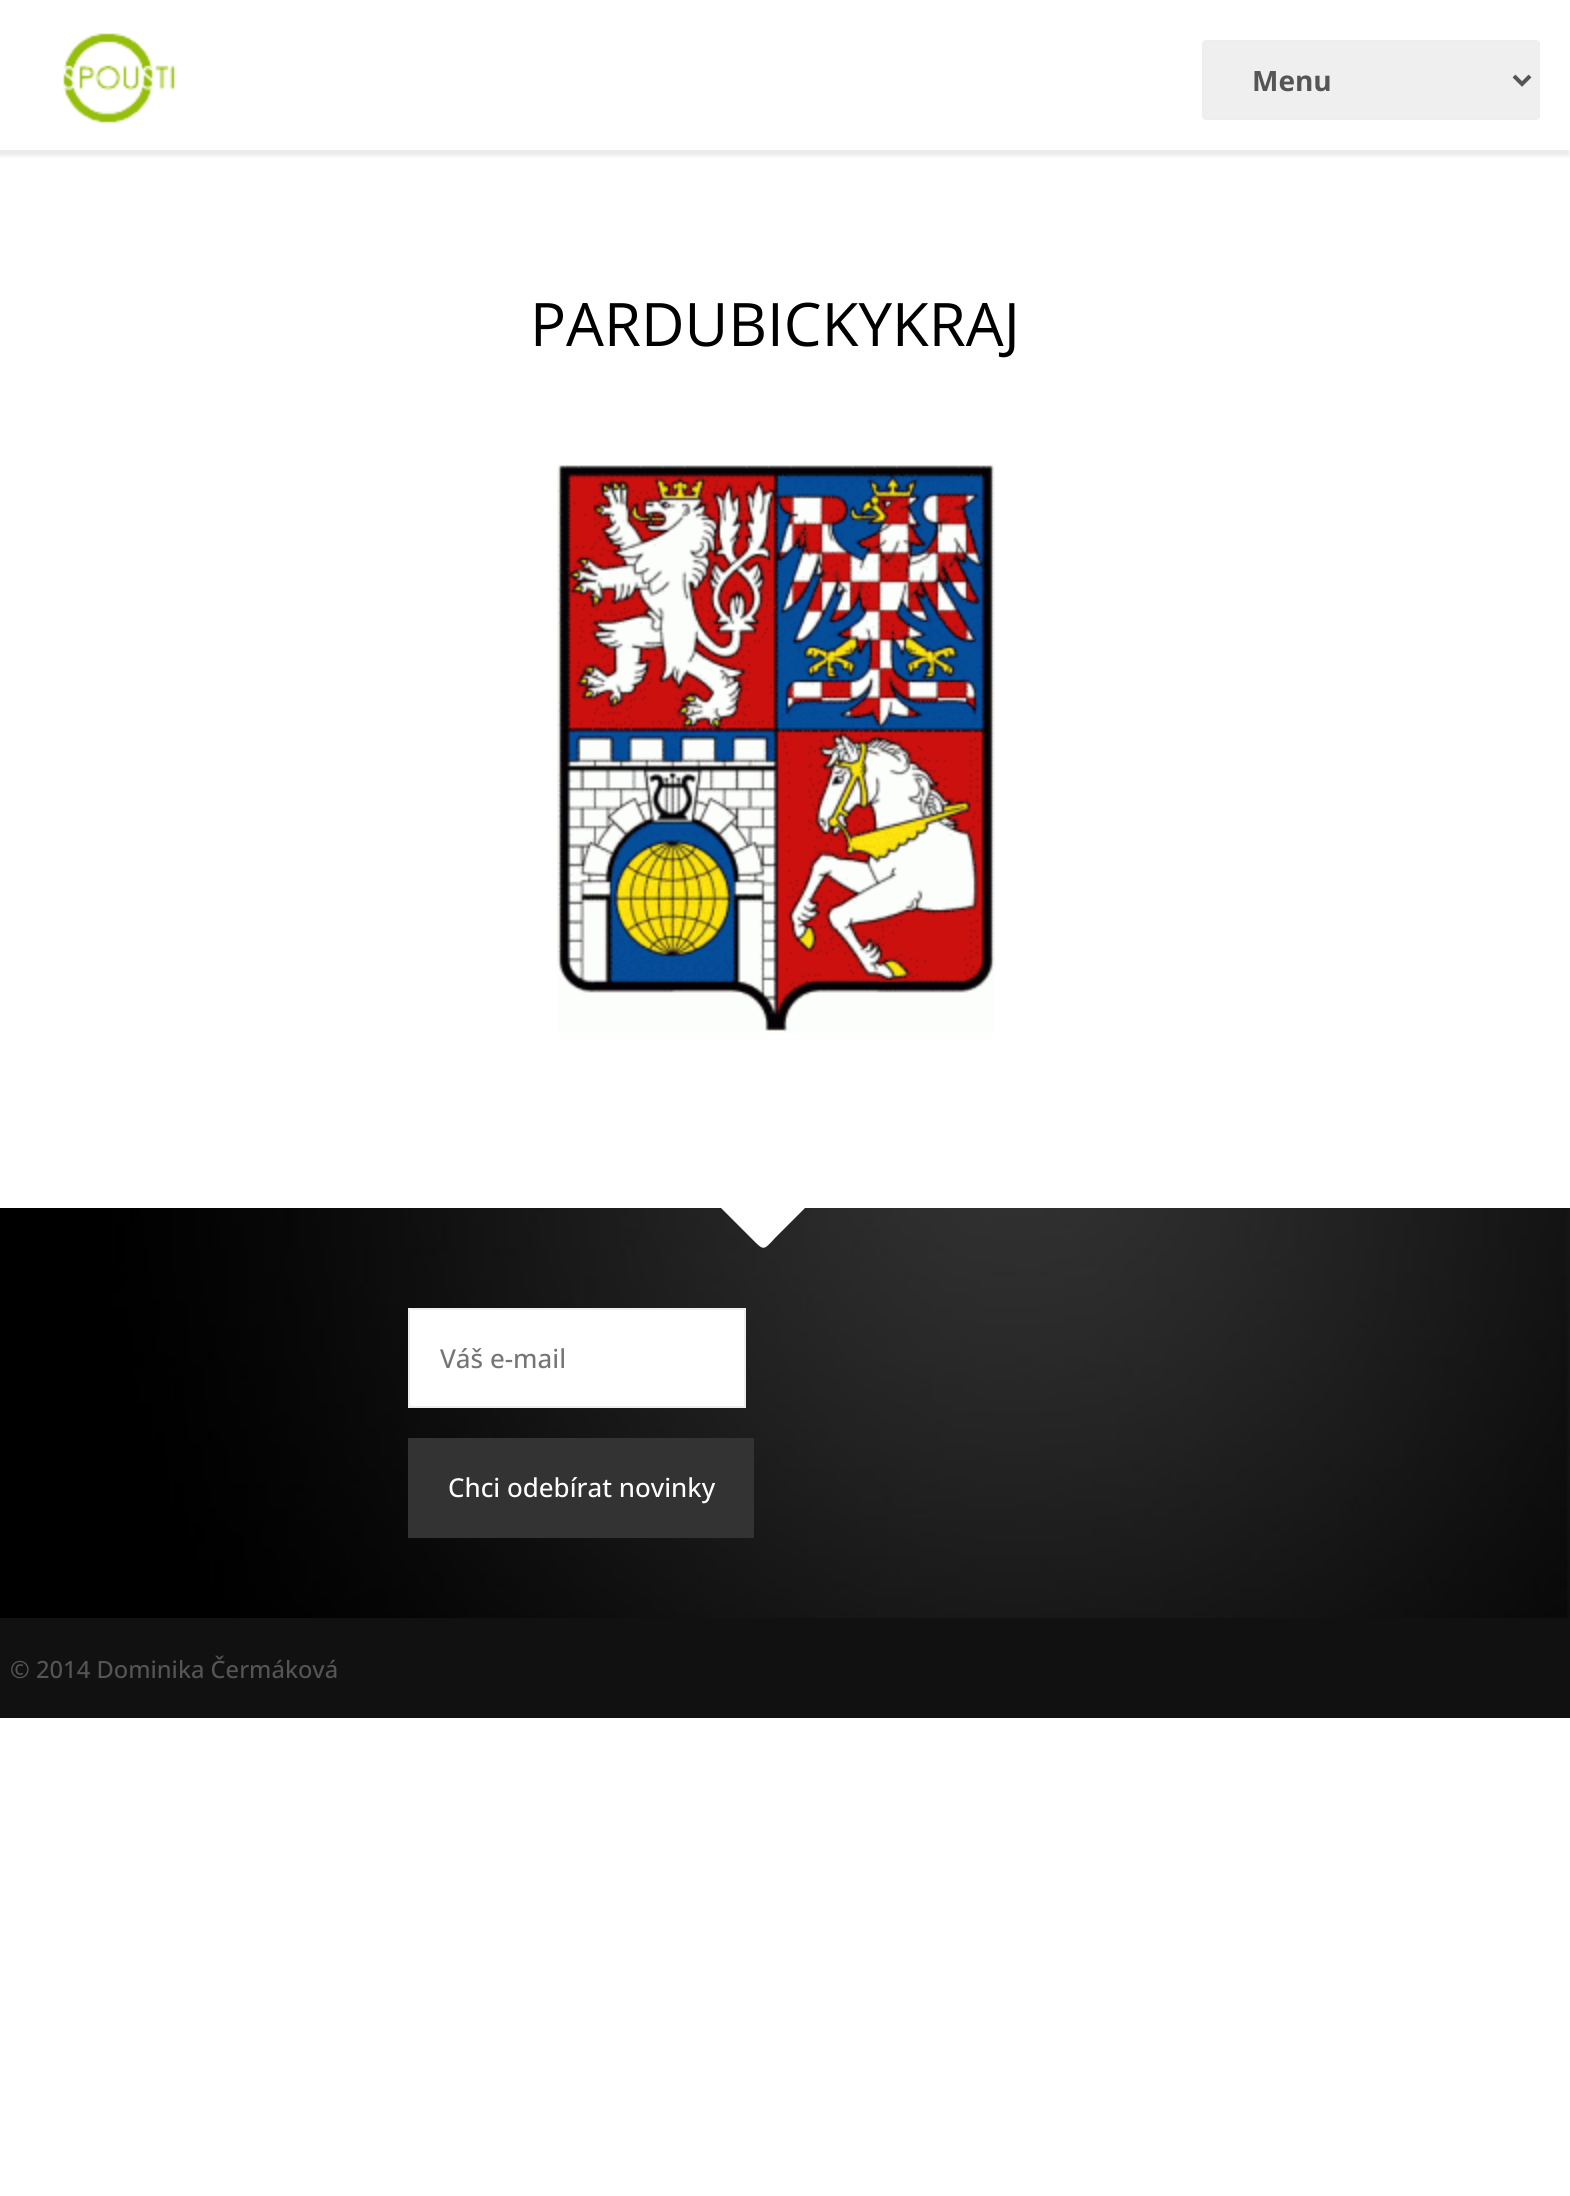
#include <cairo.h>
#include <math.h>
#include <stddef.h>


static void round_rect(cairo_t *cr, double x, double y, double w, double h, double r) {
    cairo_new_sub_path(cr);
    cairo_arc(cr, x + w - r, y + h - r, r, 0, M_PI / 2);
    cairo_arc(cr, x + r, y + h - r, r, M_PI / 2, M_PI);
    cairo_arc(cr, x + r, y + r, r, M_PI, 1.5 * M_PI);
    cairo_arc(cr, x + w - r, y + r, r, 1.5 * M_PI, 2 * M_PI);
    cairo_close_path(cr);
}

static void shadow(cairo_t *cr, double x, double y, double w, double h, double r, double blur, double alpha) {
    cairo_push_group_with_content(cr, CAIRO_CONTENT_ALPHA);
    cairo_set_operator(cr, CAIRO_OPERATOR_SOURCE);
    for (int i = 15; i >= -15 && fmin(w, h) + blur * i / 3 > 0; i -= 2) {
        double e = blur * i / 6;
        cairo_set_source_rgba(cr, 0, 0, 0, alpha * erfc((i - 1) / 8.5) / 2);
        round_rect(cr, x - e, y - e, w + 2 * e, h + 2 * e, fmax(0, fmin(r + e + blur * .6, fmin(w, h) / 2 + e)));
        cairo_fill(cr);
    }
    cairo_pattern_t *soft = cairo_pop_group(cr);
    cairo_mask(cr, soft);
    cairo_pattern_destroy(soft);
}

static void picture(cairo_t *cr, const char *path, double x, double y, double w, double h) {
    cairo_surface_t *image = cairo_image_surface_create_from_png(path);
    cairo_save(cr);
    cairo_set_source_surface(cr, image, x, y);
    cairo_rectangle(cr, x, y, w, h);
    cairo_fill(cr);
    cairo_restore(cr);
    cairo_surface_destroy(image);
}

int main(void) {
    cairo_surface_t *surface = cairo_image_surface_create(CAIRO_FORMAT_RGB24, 1570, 2196);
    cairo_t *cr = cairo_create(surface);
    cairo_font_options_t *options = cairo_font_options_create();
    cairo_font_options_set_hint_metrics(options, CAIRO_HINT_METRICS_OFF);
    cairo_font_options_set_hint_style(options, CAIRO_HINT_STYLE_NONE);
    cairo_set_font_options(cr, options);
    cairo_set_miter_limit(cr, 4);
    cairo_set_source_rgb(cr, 1, 1, 1);
    cairo_paint(cr);
    cairo_save(cr);
    cairo_rectangle(cr, 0, 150, 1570, 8);
    cairo_clip(cr);
    cairo_set_source_rgb(cr, 0.196, 0.196, 0.196);
    shadow(cr, -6, 6, 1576, 150, 0, 2, 0.1);
    cairo_restore(cr);
    picture(cr, "img1.png", 63, 33, 112, 90);
    cairo_set_source_rgb(cr, 0.937, 0.937, 0.937);
    round_rect(cr, 1203, 41, 336, 78, 3);
    cairo_fill_preserve(cr);
    cairo_set_source_rgb(cr, 0.933, 0.933, 0.933);
    cairo_stroke(cr);
    cairo_new_path(cr);
    cairo_move_to(cr, 1514, 76);
    cairo_line_to(cr, 1522, 84);
    cairo_line_to(cr, 1530, 76);
    cairo_set_source_rgb(cr, 0.333, 0.333, 0.333);
    cairo_set_line_width(cr, 4);
    cairo_stroke(cr);
    cairo_select_font_face(cr, "Open Sans", CAIRO_FONT_SLANT_NORMAL, CAIRO_FONT_WEIGHT_BOLD);
    cairo_set_font_size(cr, 28);
    cairo_move_to(cr, 1252, 91);
    cairo_show_text(cr, "Menu");
    cairo_select_font_face(cr, "Open Sans", CAIRO_FONT_SLANT_NORMAL, CAIRO_FONT_WEIGHT_NORMAL);
    cairo_set_font_size(cr, 60);
    cairo_set_source_rgb(cr, 0, 0, 0);
    cairo_move_to(cr, 530, 346);
    cairo_show_text(cr, "PARDUBICKYKRAJ");
    picture(cr, "img2.png", 557, 465, 438, 568);
    cairo_set_source_rgb(cr, 0.133, 0.133, 0.133);
    cairo_rectangle(cr, 1567, 1208, 3, 410);
    cairo_fill(cr);
    picture(cr, "img3.png", 0, 1208, 1570, 410);
    cairo_set_source_rgb(cr, 1, 1, 1);
    cairo_new_path(cr);
    cairo_move_to(cr, 813, 1192);
    cairo_curve_to(cr, 819, 1198, 809, 1205, 805, 1208);
    cairo_line_to(cr, 775, 1238);
    cairo_curve_to(cr, 763, 1251, 764, 1251, 751, 1238);
    cairo_line_to(cr, 714, 1201);
    cairo_curve_to(cr, 710, 1197, 712, 1191, 718, 1190);
    cairo_line_to(cr, 810, 1190);
    cairo_close_path(cr);
    cairo_fill(cr);
    cairo_rectangle(cr, 409, 1309, 336, 98);
    cairo_fill_preserve(cr);
    cairo_set_source_rgb(cr, 0.933, 0.933, 0.933);
    cairo_set_line_width(cr, 2);
    cairo_stroke(cr);
    cairo_select_font_face(cr, "Open Sans Medium", CAIRO_FONT_SLANT_NORMAL, CAIRO_FONT_WEIGHT_NORMAL);
    cairo_set_font_size(cr, 26);
    cairo_set_source_rgb(cr, 0.459, 0.459, 0.459);
    cairo_move_to(cr, 440, 1368);
    cairo_show_text(cr, "Váš e-mail");
    cairo_set_source_rgb(cr, 0.2, 0.2, 0.2);
    cairo_rectangle(cr, 408, 1438, 346, 100);
    cairo_fill(cr);
    cairo_set_source_rgb(cr, 1, 1, 1);
    cairo_move_to(cr, 448, 1497);
    cairo_show_text(cr, "Chci odebírat novinky");
    cairo_set_source_rgb(cr, 0.067, 0.067, 0.067);
    cairo_rectangle(cr, 0, 1618, 1570, 100);
    cairo_fill(cr);
    cairo_set_font_size(cr, 23.75);
    cairo_set_source_rgb(cr, 0.333, 0.333, 0.333);
    cairo_move_to(cr, 10, 1678);
    cairo_show_text(cr, "© 2014 Dominika Čermáková");
    cairo_surface_write_to_png(surface, "page.png");
    cairo_font_options_destroy(options);
    cairo_destroy(cr);
    cairo_surface_destroy(surface);
    return 0;
}
